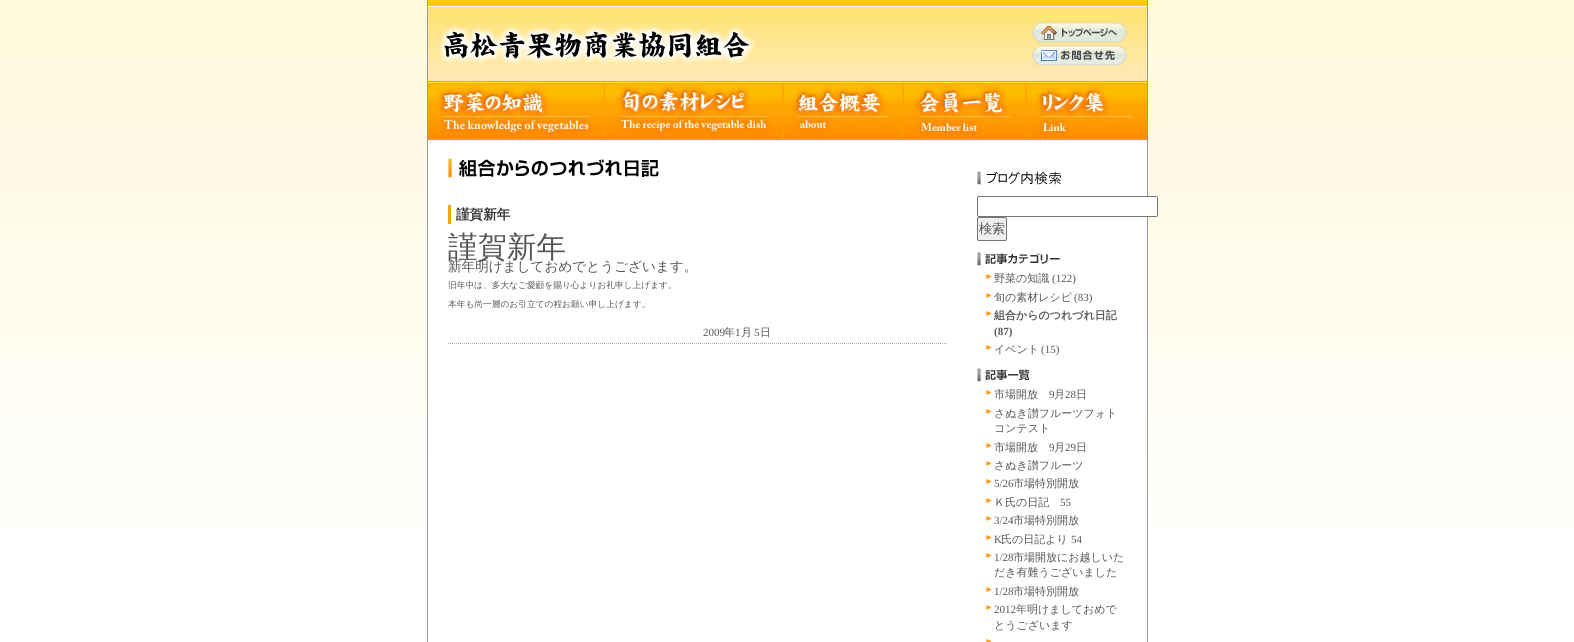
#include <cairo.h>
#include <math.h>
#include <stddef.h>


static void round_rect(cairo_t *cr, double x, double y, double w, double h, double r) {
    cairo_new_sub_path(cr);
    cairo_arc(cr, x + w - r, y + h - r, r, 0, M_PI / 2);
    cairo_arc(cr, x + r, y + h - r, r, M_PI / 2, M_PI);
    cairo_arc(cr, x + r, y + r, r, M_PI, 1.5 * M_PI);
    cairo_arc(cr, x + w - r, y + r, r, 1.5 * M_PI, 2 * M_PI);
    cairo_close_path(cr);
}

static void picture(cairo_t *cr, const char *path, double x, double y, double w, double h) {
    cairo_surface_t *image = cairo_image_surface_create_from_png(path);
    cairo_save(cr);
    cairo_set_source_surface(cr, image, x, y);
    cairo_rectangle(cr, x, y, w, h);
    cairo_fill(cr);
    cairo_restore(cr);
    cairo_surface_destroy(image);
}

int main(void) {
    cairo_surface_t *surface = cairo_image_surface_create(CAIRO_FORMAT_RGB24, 1574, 642);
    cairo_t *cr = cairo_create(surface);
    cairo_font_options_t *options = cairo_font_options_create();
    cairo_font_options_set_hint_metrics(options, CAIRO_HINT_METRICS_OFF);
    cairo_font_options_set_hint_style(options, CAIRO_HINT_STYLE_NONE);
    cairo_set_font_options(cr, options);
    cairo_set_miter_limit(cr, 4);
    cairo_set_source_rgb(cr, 1, 1, 1);
    cairo_paint(cr);
    picture(cr, "img1.png", 0, 0, 1574, 528);
    picture(cr, "img2.png", 428, 0, 719, 81);
    cairo_set_source_rgb(cr, 0.6, 0.6, 0.6);
    cairo_rectangle(cr, 1147, 0, 1, 642);
    cairo_fill(cr);
    cairo_rectangle(cr, 427, 0, 1, 642);
    cairo_fill(cr);
    picture(cr, "img3.png", 439, 25, 316, 39);
    picture(cr, "img4.png", 1032, 22, 95, 21);
    picture(cr, "img5.png", 1032, 45, 95, 21);
    picture(cr, "img6.png", 428, 81, 177, 59);
    picture(cr, "img7.png", 605, 81, 179, 59);
    picture(cr, "img8.png", 784, 81, 120, 59);
    picture(cr, "img9.png", 904, 81, 123, 59);
    picture(cr, "img10.png", 1027, 81, 120, 59);
    cairo_set_source_rgb(cr, 1, 1, 1);
    cairo_rectangle(cr, 428, 140, 719, 388);
    cairo_fill(cr);
    picture(cr, "img11.png", 448, 158, 211, 20);
    cairo_set_source_rgb(cr, 1, 0.647, 0);
    cairo_rectangle(cr, 448, 205, 3, 19);
    cairo_fill(cr);
    cairo_select_font_face(cr, "WenQuanYi Zen Hei", CAIRO_FONT_SLANT_NORMAL, CAIRO_FONT_WEIGHT_BOLD);
    cairo_set_font_size(cr, 13.6);
    cairo_set_source_rgb(cr, 0.2, 0.2, 0.2);
    cairo_move_to(cr, 456, 219);
    cairo_show_text(cr, "謹賀新年");
    cairo_select_font_face(cr, "WenQuanYi Zen Hei Medium", CAIRO_FONT_SLANT_NORMAL, CAIRO_FONT_WEIGHT_NORMAL);
    cairo_set_font_size(cr, 29.5);
    cairo_set_source_rgb(cr, 0.333, 0.333, 0.333);
    cairo_move_to(cr, 448, 257);
    cairo_show_text(cr, "謹賀新年");
    cairo_set_font_size(cr, 13.6);
    cairo_move_to(cr, 448, 271);
    cairo_show_text(cr, "新年明けましておめでとうございます。");
    cairo_set_font_size(cr, 8.7);
    cairo_move_to(cr, 448, 288);
    cairo_show_text(cr, "旧年中は、多大なご愛顧を賜り心よりお礼申し上げます。");
    cairo_move_to(cr, 448, 307);
    cairo_show_text(cr, "本年も尚一層のお引立ての程お願い申し上げます。");
    cairo_new_path(cr);
    cairo_move_to(cr, 448, 343.5);
    cairo_line_to(cr, 948, 343.5);
    cairo_set_source_rgb(cr, 0.667, 0.667, 0.667);
    cairo_set_line_width(cr, 1);
    cairo_set_dash(cr, (double[]){1, 1}, 2, 0);
    cairo_stroke(cr);
    cairo_select_font_face(cr, "Liberation Serif", CAIRO_FONT_SLANT_NORMAL, CAIRO_FONT_WEIGHT_NORMAL);
    cairo_set_font_size(cr, 11);
    cairo_set_source_rgb(cr, 0.333, 0.333, 0.333);
    cairo_move_to(cr, 703, 336);
    cairo_show_text(cr, "2009");
    cairo_select_font_face(cr, "WenQuanYi Zen Hei Medium", CAIRO_FONT_SLANT_NORMAL, CAIRO_FONT_WEIGHT_NORMAL);
    cairo_move_to(cr, 724, 336);
    cairo_show_text(cr, "年");
    cairo_select_font_face(cr, "Liberation Serif", CAIRO_FONT_SLANT_NORMAL, CAIRO_FONT_WEIGHT_NORMAL);
    cairo_move_to(cr, 735, 336);
    cairo_show_text(cr, "1");
    cairo_select_font_face(cr, "WenQuanYi Zen Hei Medium", CAIRO_FONT_SLANT_NORMAL, CAIRO_FONT_WEIGHT_NORMAL);
    cairo_move_to(cr, 741, 336);
    cairo_show_text(cr, "月");
    cairo_select_font_face(cr, "Liberation Serif", CAIRO_FONT_SLANT_NORMAL, CAIRO_FONT_WEIGHT_NORMAL);
    cairo_move_to(cr, 754, 336);
    cairo_show_text(cr, "5");
    cairo_select_font_face(cr, "WenQuanYi Zen Hei Medium", CAIRO_FONT_SLANT_NORMAL, CAIRO_FONT_WEIGHT_NORMAL);
    cairo_move_to(cr, 760, 336);
    cairo_show_text(cr, "日");
    picture(cr, "img12.png", 977, 171, 84, 14);
    cairo_set_source_rgb(cr, 1, 1, 1);
    round_rect(cr, 977.5, 196.5, 180, 20, 1.5);
    cairo_fill_preserve(cr);
    cairo_set_source_rgb(cr, 0.463, 0.463, 0.463);
    cairo_set_dash(cr, NULL, 0, 0);
    cairo_stroke(cr);
    cairo_set_source_rgb(cr, 0.937, 0.937, 0.937);
    round_rect(cr, 977.5, 217.5, 29, 23, 1.5);
    cairo_fill_preserve(cr);
    cairo_set_source_rgb(cr, 0.463, 0.463, 0.463);
    cairo_stroke(cr);
    cairo_set_font_size(cr, 13);
    cairo_set_source_rgb(cr, 0.333, 0.333, 0.333);
    cairo_move_to(cr, 979, 233);
    cairo_show_text(cr, "検索");
    picture(cr, "img13.png", 977, 252, 83, 14);
    picture(cr, "img14.png", 986, 274, 6, 5);
    cairo_set_font_size(cr, 11);
    cairo_move_to(cr, 994, 282);
    cairo_show_text(cr, "野菜の知識");
    cairo_select_font_face(cr, "Liberation Serif", CAIRO_FONT_SLANT_NORMAL, CAIRO_FONT_WEIGHT_NORMAL);
    cairo_move_to(cr, 1052, 282);
    cairo_show_text(cr, "(122)");
    picture(cr, "img14.png", 986, 293, 6, 5);
    cairo_select_font_face(cr, "WenQuanYi Zen Hei Medium", CAIRO_FONT_SLANT_NORMAL, CAIRO_FONT_WEIGHT_NORMAL);
    cairo_move_to(cr, 994, 301);
    cairo_show_text(cr, "旬の素材レシピ");
    cairo_select_font_face(cr, "Liberation Serif", CAIRO_FONT_SLANT_NORMAL, CAIRO_FONT_WEIGHT_NORMAL);
    cairo_move_to(cr, 1074, 301);
    cairo_show_text(cr, "(83)");
    picture(cr, "img14.png", 986, 311, 6, 5);
    cairo_select_font_face(cr, "WenQuanYi Zen Hei", CAIRO_FONT_SLANT_NORMAL, CAIRO_FONT_WEIGHT_BOLD);
    cairo_move_to(cr, 994, 319);
    cairo_show_text(cr, "組合からのつれづれ日記");
    cairo_select_font_face(cr, "Liberation Serif", CAIRO_FONT_SLANT_NORMAL, CAIRO_FONT_WEIGHT_BOLD);
    cairo_move_to(cr, 994, 335);
    cairo_show_text(cr, "(87)");
    picture(cr, "img14.png", 986, 345, 6, 5);
    cairo_select_font_face(cr, "WenQuanYi Zen Hei Medium", CAIRO_FONT_SLANT_NORMAL, CAIRO_FONT_WEIGHT_NORMAL);
    cairo_move_to(cr, 994, 353);
    cairo_show_text(cr, "イベント");
    cairo_select_font_face(cr, "Liberation Serif", CAIRO_FONT_SLANT_NORMAL, CAIRO_FONT_WEIGHT_NORMAL);
    cairo_move_to(cr, 1041, 353);
    cairo_show_text(cr, "(15)");
    picture(cr, "img15.png", 977, 368, 53, 14);
    picture(cr, "img14.png", 986, 390, 6, 5);
    cairo_select_font_face(cr, "WenQuanYi Zen Hei Medium", CAIRO_FONT_SLANT_NORMAL, CAIRO_FONT_WEIGHT_NORMAL);
    cairo_move_to(cr, 994, 398);
    cairo_show_text(cr, "市場開放");
    cairo_select_font_face(cr, "Liberation Serif", CAIRO_FONT_SLANT_NORMAL, CAIRO_FONT_WEIGHT_NORMAL);
    cairo_move_to(cr, 1049, 398);
    cairo_show_text(cr, "9");
    cairo_select_font_face(cr, "WenQuanYi Zen Hei Medium", CAIRO_FONT_SLANT_NORMAL, CAIRO_FONT_WEIGHT_NORMAL);
    cairo_move_to(cr, 1054, 398);
    cairo_show_text(cr, "月");
    cairo_select_font_face(cr, "Liberation Serif", CAIRO_FONT_SLANT_NORMAL, CAIRO_FONT_WEIGHT_NORMAL);
    cairo_move_to(cr, 1065, 398);
    cairo_show_text(cr, "28");
    cairo_select_font_face(cr, "WenQuanYi Zen Hei Medium", CAIRO_FONT_SLANT_NORMAL, CAIRO_FONT_WEIGHT_NORMAL);
    cairo_move_to(cr, 1076, 398);
    cairo_show_text(cr, "日");
    picture(cr, "img14.png", 986, 409, 6, 5);
    cairo_move_to(cr, 994, 417);
    cairo_show_text(cr, "さぬき讃フルーツフォト");
    cairo_move_to(cr, 994, 432);
    cairo_show_text(cr, "コンテスト");
    picture(cr, "img14.png", 986, 443, 6, 5);
    cairo_move_to(cr, 994, 451);
    cairo_show_text(cr, "市場開放");
    cairo_select_font_face(cr, "Liberation Serif", CAIRO_FONT_SLANT_NORMAL, CAIRO_FONT_WEIGHT_NORMAL);
    cairo_move_to(cr, 1049, 451);
    cairo_show_text(cr, "9");
    cairo_select_font_face(cr, "WenQuanYi Zen Hei Medium", CAIRO_FONT_SLANT_NORMAL, CAIRO_FONT_WEIGHT_NORMAL);
    cairo_move_to(cr, 1054, 451);
    cairo_show_text(cr, "月");
    cairo_select_font_face(cr, "Liberation Serif", CAIRO_FONT_SLANT_NORMAL, CAIRO_FONT_WEIGHT_NORMAL);
    cairo_move_to(cr, 1065, 451);
    cairo_show_text(cr, "29");
    cairo_select_font_face(cr, "WenQuanYi Zen Hei Medium", CAIRO_FONT_SLANT_NORMAL, CAIRO_FONT_WEIGHT_NORMAL);
    cairo_move_to(cr, 1076, 451);
    cairo_show_text(cr, "日");
    picture(cr, "img14.png", 986, 461, 6, 5);
    cairo_move_to(cr, 994, 469);
    cairo_show_text(cr, "さぬき讃フルーツ");
    picture(cr, "img14.png", 986, 479, 6, 5);
    cairo_select_font_face(cr, "Liberation Serif", CAIRO_FONT_SLANT_NORMAL, CAIRO_FONT_WEIGHT_NORMAL);
    cairo_move_to(cr, 994, 487);
    cairo_show_text(cr, "5/26");
    cairo_select_font_face(cr, "WenQuanYi Zen Hei Medium", CAIRO_FONT_SLANT_NORMAL, CAIRO_FONT_WEIGHT_NORMAL);
    cairo_move_to(cr, 1013, 487);
    cairo_show_text(cr, "市場特別開放");
    picture(cr, "img14.png", 986, 498, 6, 5);
    cairo_move_to(cr, 994, 506);
    cairo_show_text(cr, "Ｋ氏の日記");
    cairo_select_font_face(cr, "Liberation Serif", CAIRO_FONT_SLANT_NORMAL, CAIRO_FONT_WEIGHT_NORMAL);
    cairo_move_to(cr, 1060, 506);
    cairo_show_text(cr, "55");
    picture(cr, "img14.png", 986, 516, 6, 5);
    cairo_move_to(cr, 994, 524);
    cairo_show_text(cr, "3/24");
    cairo_select_font_face(cr, "WenQuanYi Zen Hei Medium", CAIRO_FONT_SLANT_NORMAL, CAIRO_FONT_WEIGHT_NORMAL);
    cairo_move_to(cr, 1013, 524);
    cairo_show_text(cr, "市場特別開放");
    picture(cr, "img14.png", 986, 535, 6, 5);
    cairo_select_font_face(cr, "Liberation Serif", CAIRO_FONT_SLANT_NORMAL, CAIRO_FONT_WEIGHT_NORMAL);
    cairo_move_to(cr, 994, 543);
    cairo_show_text(cr, "K");
    cairo_select_font_face(cr, "WenQuanYi Zen Hei Medium", CAIRO_FONT_SLANT_NORMAL, CAIRO_FONT_WEIGHT_NORMAL);
    cairo_move_to(cr, 1001, 543);
    cairo_show_text(cr, "氏の日記より");
    cairo_select_font_face(cr, "Liberation Serif", CAIRO_FONT_SLANT_NORMAL, CAIRO_FONT_WEIGHT_NORMAL);
    cairo_move_to(cr, 1071, 543);
    cairo_show_text(cr, "54");
    picture(cr, "img14.png", 986, 553, 6, 5);
    cairo_move_to(cr, 994, 561);
    cairo_show_text(cr, "1/28");
    cairo_select_font_face(cr, "WenQuanYi Zen Hei Medium", CAIRO_FONT_SLANT_NORMAL, CAIRO_FONT_WEIGHT_NORMAL);
    cairo_move_to(cr, 1013, 561);
    cairo_show_text(cr, "市場開放にお越しいた");
    cairo_move_to(cr, 994, 576);
    cairo_show_text(cr, "だき有難うございました");
    picture(cr, "img14.png", 986, 587, 6, 5);
    cairo_select_font_face(cr, "Liberation Serif", CAIRO_FONT_SLANT_NORMAL, CAIRO_FONT_WEIGHT_NORMAL);
    cairo_move_to(cr, 994, 595);
    cairo_show_text(cr, "1/28");
    cairo_select_font_face(cr, "WenQuanYi Zen Hei Medium", CAIRO_FONT_SLANT_NORMAL, CAIRO_FONT_WEIGHT_NORMAL);
    cairo_move_to(cr, 1013, 595);
    cairo_show_text(cr, "市場特別開放");
    picture(cr, "img14.png", 986, 605, 6, 5);
    cairo_select_font_face(cr, "Liberation Serif", CAIRO_FONT_SLANT_NORMAL, CAIRO_FONT_WEIGHT_NORMAL);
    cairo_move_to(cr, 994, 613);
    cairo_show_text(cr, "2012");
    cairo_select_font_face(cr, "WenQuanYi Zen Hei Medium", CAIRO_FONT_SLANT_NORMAL, CAIRO_FONT_WEIGHT_NORMAL);
    cairo_move_to(cr, 1016, 613);
    cairo_show_text(cr, "年明けましておめで");
    cairo_move_to(cr, 994, 629);
    cairo_show_text(cr, "とうございます");
    picture(cr, "img16.png", 986, 639, 6, 3);
    cairo_surface_write_to_png(surface, "page.png");
    cairo_font_options_destroy(options);
    cairo_destroy(cr);
    cairo_surface_destroy(surface);
    return 0;
}
